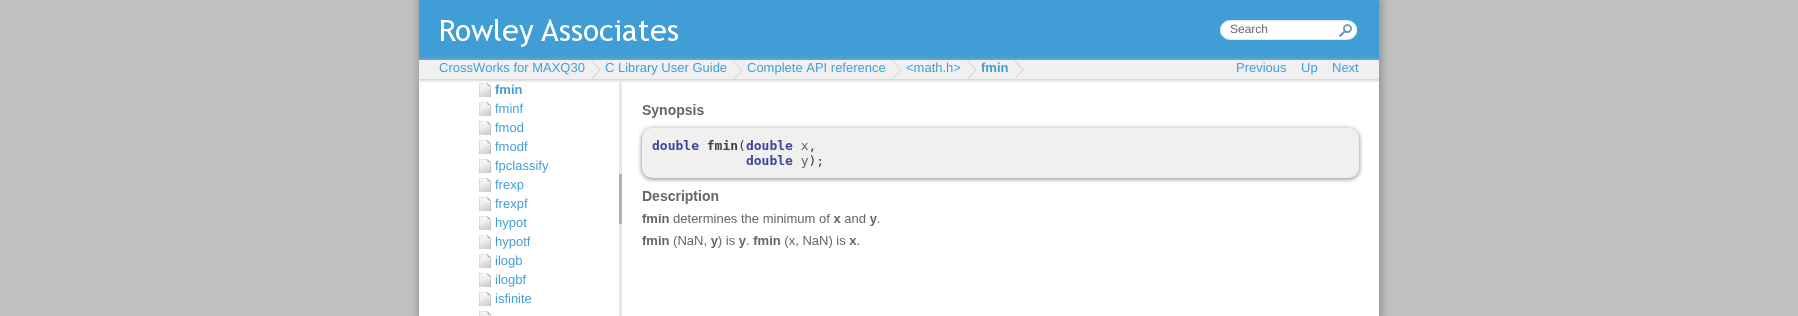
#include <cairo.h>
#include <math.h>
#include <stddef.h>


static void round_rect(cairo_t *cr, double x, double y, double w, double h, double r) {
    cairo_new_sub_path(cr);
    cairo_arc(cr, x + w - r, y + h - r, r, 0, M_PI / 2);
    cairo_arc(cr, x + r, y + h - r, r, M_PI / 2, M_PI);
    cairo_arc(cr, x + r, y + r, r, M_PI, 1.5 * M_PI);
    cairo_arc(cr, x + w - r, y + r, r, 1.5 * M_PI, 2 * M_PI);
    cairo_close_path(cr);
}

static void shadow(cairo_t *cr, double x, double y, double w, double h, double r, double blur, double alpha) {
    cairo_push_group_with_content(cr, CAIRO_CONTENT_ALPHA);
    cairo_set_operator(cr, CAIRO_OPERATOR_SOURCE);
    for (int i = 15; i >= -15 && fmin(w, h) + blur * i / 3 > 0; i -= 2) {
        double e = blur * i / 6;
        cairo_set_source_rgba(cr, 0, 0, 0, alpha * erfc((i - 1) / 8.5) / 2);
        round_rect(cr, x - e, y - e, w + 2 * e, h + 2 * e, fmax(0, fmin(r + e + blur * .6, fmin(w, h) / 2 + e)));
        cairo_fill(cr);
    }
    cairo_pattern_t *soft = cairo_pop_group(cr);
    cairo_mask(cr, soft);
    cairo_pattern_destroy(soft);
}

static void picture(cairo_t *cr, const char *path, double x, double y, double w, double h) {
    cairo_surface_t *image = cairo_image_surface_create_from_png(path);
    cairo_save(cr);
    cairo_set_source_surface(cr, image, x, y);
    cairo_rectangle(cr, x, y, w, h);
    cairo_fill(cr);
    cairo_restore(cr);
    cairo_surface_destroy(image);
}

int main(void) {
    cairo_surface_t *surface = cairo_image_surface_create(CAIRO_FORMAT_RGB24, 1798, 316);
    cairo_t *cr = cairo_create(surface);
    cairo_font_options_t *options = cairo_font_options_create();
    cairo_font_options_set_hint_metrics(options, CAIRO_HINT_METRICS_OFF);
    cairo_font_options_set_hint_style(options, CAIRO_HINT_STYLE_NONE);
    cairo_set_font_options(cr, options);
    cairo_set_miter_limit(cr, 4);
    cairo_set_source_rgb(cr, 0.753, 0.753, 0.753);
    cairo_paint(cr);
    cairo_set_source_rgb(cr, 0.502, 0.502, 0.502);
    shadow(cr, 420, 1, 960, 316, 0, 5, 1);
    cairo_set_source_rgb(cr, 1, 1, 1);
    cairo_rectangle(cr, 419, 79, 960, 237);
    cairo_fill(cr);
    cairo_set_source_rgb(cr, 0.255, 0.616, 0.835);
    cairo_rectangle(cr, 419, 0, 960, 60);
    cairo_fill(cr);
    picture(cr, "img1.png", 441, 19, 916, 28);
    cairo_select_font_face(cr, "Liberation Sans", CAIRO_FONT_SLANT_NORMAL, CAIRO_FONT_WEIGHT_NORMAL);
    cairo_set_font_size(cr, 12);
    cairo_set_source_rgb(cr, 0.4, 0.4, 0.4);
    cairo_move_to(cr, 1230, 33);
    cairo_show_text(cr, "Search");
    cairo_save(cr);
    cairo_rectangle(cr, 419, 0, 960, 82);
    cairo_clip(cr);
    cairo_set_source_rgb(cr, 0.753, 0.753, 0.753);
    shadow(cr, 419, 61, 960, 19, 0, 2.5, 1);
    cairo_restore(cr);
    cairo_set_source_rgb(cr, 0.941, 0.941, 0.941);
    cairo_rectangle(cr, 419, 60, 960, 19);
    cairo_fill(cr);
    picture(cr, "img2.png", 591, 60, 10, 19);
    cairo_set_font_size(cr, 13);
    cairo_set_source_rgb(cr, 0.255, 0.616, 0.835);
    cairo_move_to(cr, 439, 72);
    cairo_show_text(cr, "CrossWorks for MAXQ30");
    picture(cr, "img2.png", 733, 60, 10, 19);
    cairo_move_to(cr, 605, 72);
    cairo_show_text(cr, "C Library User Guide");
    picture(cr, "img2.png", 892, 60, 10, 19);
    cairo_move_to(cr, 747, 72);
    cairo_show_text(cr, "Complete API reference");
    picture(cr, "img2.png", 967, 60, 10, 19);
    cairo_move_to(cr, 906, 72);
    cairo_show_text(cr, "<math.h>");
    picture(cr, "img2.png", 1014, 60, 10, 19);
    cairo_select_font_face(cr, "Liberation Sans", CAIRO_FONT_SLANT_NORMAL, CAIRO_FONT_WEIGHT_BOLD);
    cairo_move_to(cr, 981, 72);
    cairo_show_text(cr, "fmin");
    cairo_select_font_face(cr, "Liberation Sans", CAIRO_FONT_SLANT_NORMAL, CAIRO_FONT_WEIGHT_NORMAL);
    cairo_move_to(cr, 1236, 72);
    cairo_show_text(cr, "Previous");
    cairo_move_to(cr, 1301, 72);
    cairo_show_text(cr, "Up");
    cairo_move_to(cr, 1332, 72);
    cairo_show_text(cr, "Next");
    picture(cr, "img3.png", 479, 83, 12, 14);
    cairo_select_font_face(cr, "Liberation Sans", CAIRO_FONT_SLANT_NORMAL, CAIRO_FONT_WEIGHT_BOLD);
    cairo_move_to(cr, 495, 94);
    cairo_show_text(cr, "fmin");
    picture(cr, "img3.png", 479, 102, 12, 14);
    cairo_select_font_face(cr, "Liberation Sans", CAIRO_FONT_SLANT_NORMAL, CAIRO_FONT_WEIGHT_NORMAL);
    cairo_move_to(cr, 495, 113);
    cairo_show_text(cr, "fminf");
    picture(cr, "img3.png", 479, 121, 12, 14);
    cairo_move_to(cr, 495, 132);
    cairo_show_text(cr, "fmod");
    picture(cr, "img3.png", 479, 140, 12, 14);
    cairo_move_to(cr, 495, 151);
    cairo_show_text(cr, "fmodf");
    picture(cr, "img3.png", 479, 159, 12, 14);
    cairo_move_to(cr, 495, 170);
    cairo_show_text(cr, "fpclassify");
    picture(cr, "img3.png", 479, 178, 12, 14);
    cairo_move_to(cr, 495, 189);
    cairo_show_text(cr, "frexp");
    picture(cr, "img3.png", 479, 197, 12, 14);
    cairo_move_to(cr, 495, 208);
    cairo_show_text(cr, "frexpf");
    picture(cr, "img3.png", 479, 216, 12, 14);
    cairo_move_to(cr, 495, 227);
    cairo_show_text(cr, "hypot");
    picture(cr, "img3.png", 479, 235, 12, 14);
    cairo_move_to(cr, 495, 246);
    cairo_show_text(cr, "hypotf");
    picture(cr, "img3.png", 479, 254, 12, 14);
    cairo_move_to(cr, 495, 265);
    cairo_show_text(cr, "ilogb");
    picture(cr, "img3.png", 479, 273, 12, 14);
    cairo_move_to(cr, 495, 284);
    cairo_show_text(cr, "ilogbf");
    picture(cr, "img3.png", 479, 292, 12, 14);
    cairo_move_to(cr, 495, 303);
    cairo_show_text(cr, "isfinite");
    picture(cr, "img4.png", 479, 311, 12, 5);
    cairo_set_source_rgb(cr, 0.91, 0.91, 0.91);
    cairo_rectangle(cr, 619, 82, 3, 234);
    cairo_fill(cr);
    cairo_set_source_rgb(cr, 0.69, 0.69, 0.69);
    cairo_rectangle(cr, 619, 174, 3, 50);
    cairo_fill(cr);
    picture(cr, "img5.png", 638, 104, 725, 144);
    cairo_surface_write_to_png(surface, "page.png");
    cairo_font_options_destroy(options);
    cairo_destroy(cr);
    cairo_surface_destroy(surface);
    return 0;
}
